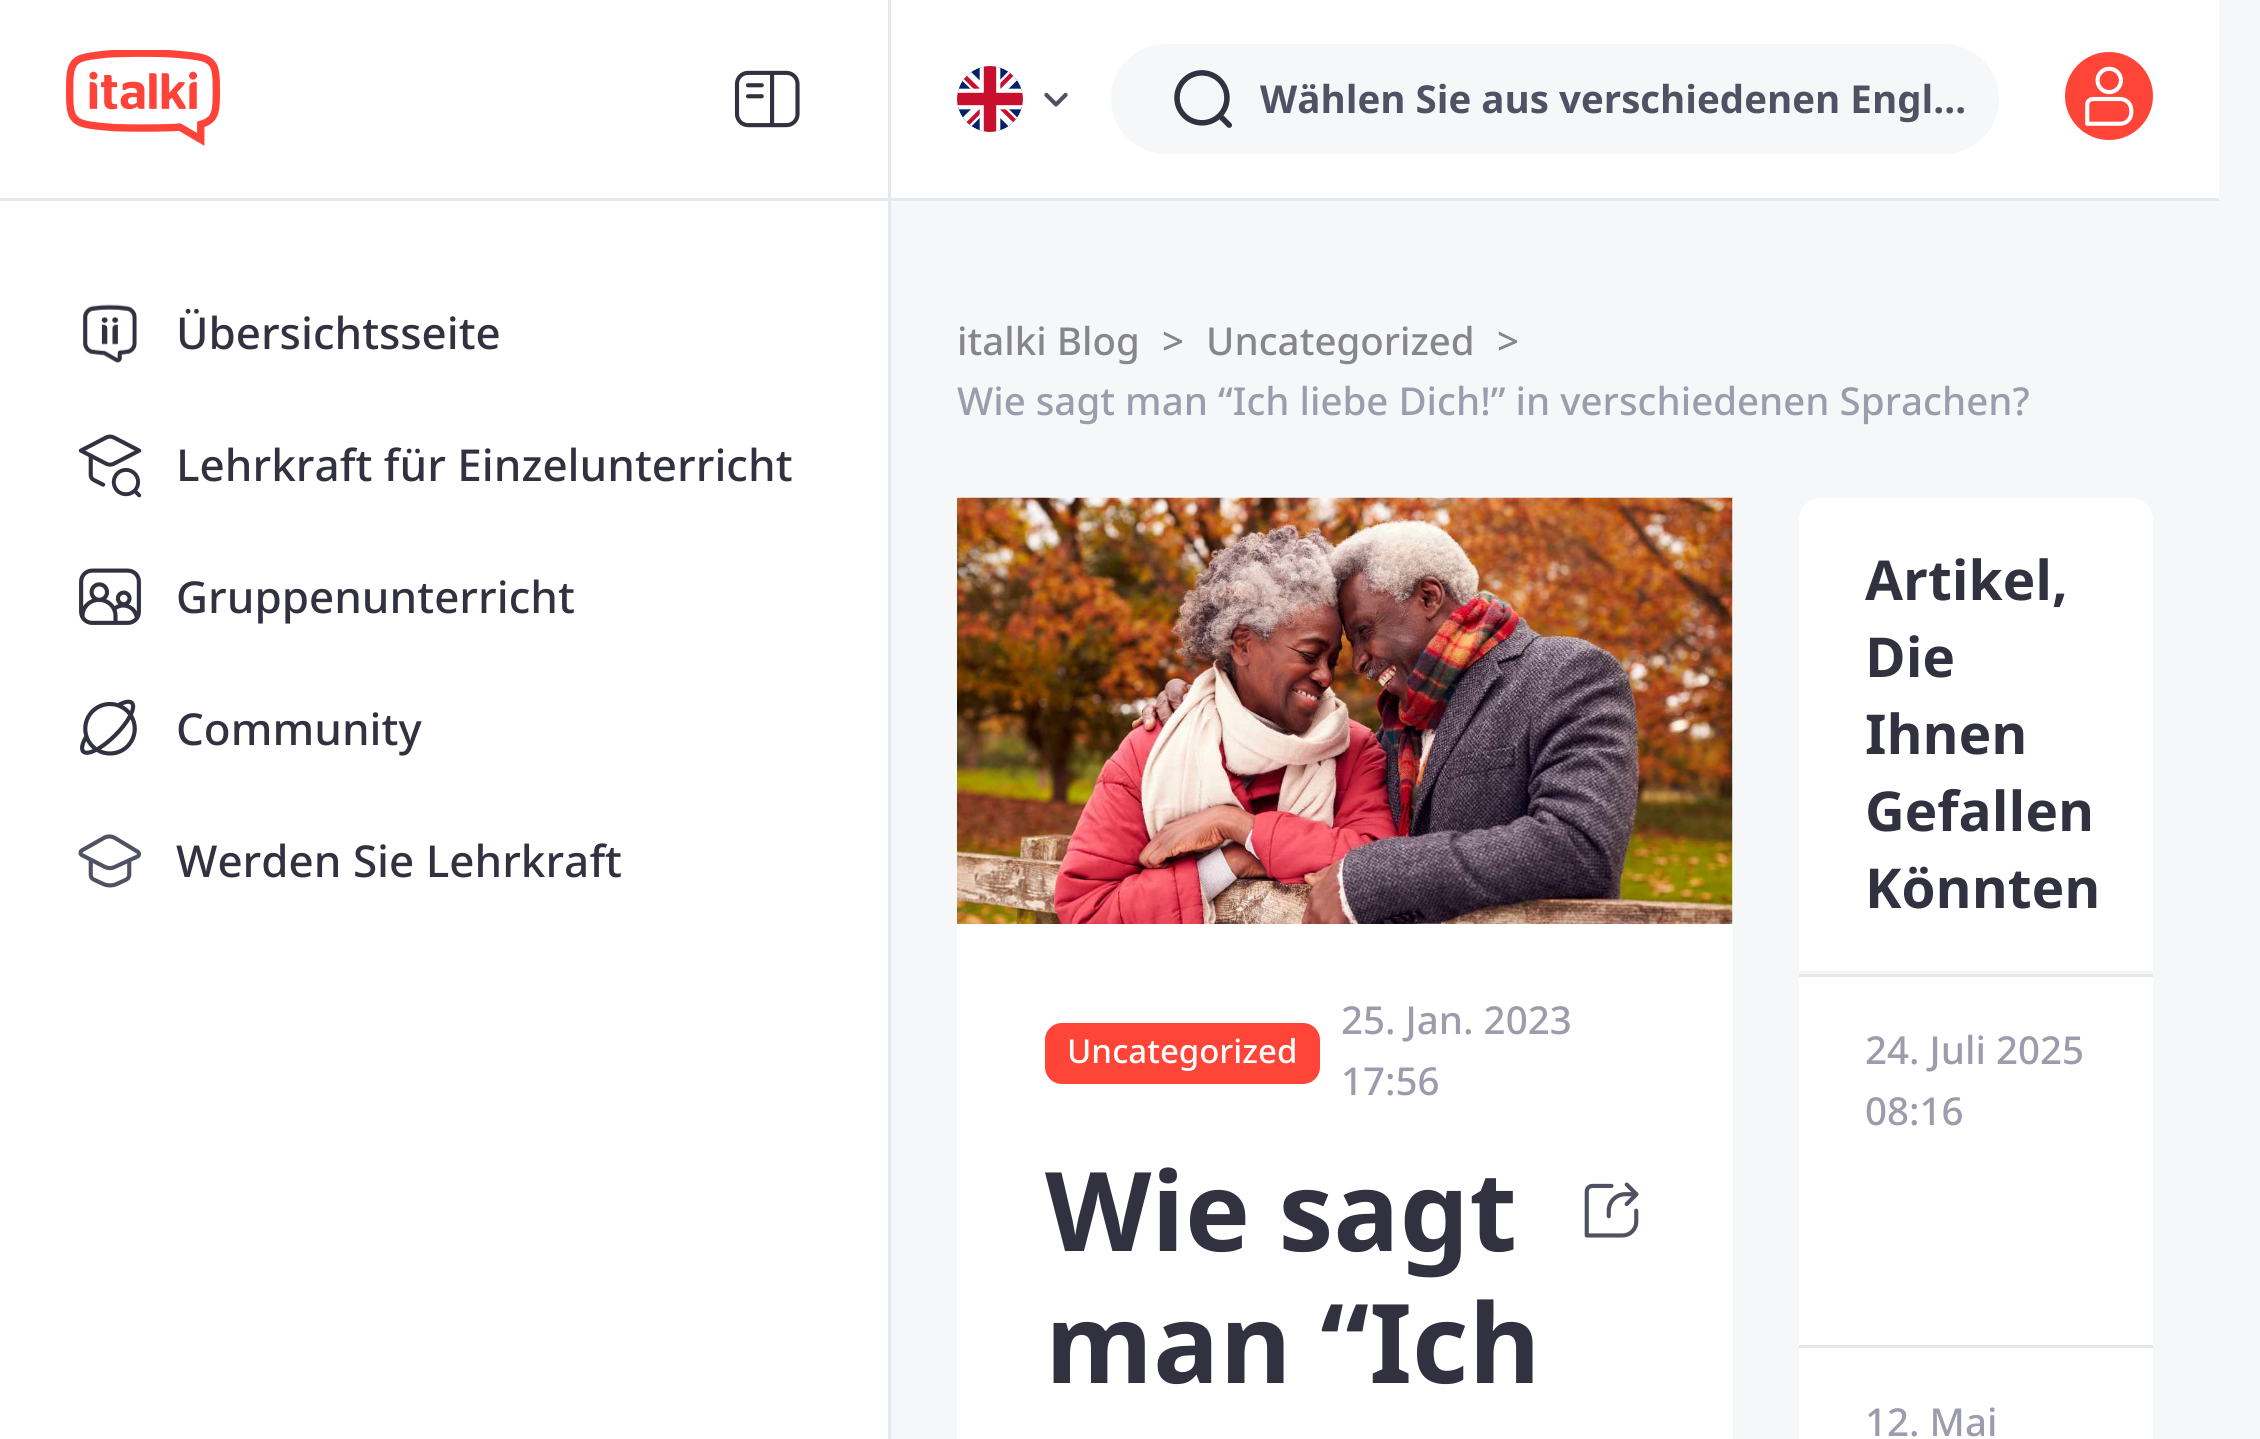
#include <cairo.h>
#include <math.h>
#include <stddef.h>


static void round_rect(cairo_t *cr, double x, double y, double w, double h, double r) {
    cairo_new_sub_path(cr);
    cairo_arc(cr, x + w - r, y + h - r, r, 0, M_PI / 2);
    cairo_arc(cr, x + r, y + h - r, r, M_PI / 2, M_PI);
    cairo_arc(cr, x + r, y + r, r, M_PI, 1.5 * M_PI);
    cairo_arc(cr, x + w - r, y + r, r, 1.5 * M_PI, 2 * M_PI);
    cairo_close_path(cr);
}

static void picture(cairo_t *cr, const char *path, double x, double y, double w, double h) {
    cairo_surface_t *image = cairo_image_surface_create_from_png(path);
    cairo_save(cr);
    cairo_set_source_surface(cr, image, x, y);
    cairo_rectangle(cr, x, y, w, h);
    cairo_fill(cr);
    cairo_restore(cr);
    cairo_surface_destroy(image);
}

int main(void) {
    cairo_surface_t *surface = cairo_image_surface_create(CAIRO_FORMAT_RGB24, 2260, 1439);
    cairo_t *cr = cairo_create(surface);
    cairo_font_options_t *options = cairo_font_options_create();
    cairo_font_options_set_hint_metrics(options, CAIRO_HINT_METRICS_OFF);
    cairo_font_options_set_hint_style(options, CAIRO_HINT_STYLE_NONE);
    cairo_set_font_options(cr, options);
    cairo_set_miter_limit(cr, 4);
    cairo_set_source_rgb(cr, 0.961, 0.965, 0.976);
    cairo_paint(cr);
    cairo_set_source_rgb(cr, 1, 1, 1);
    cairo_rectangle(cr, 0, 0, 888, 1439);
    cairo_fill(cr);
    cairo_set_source_rgb(cr, 0.898, 0.91, 0.929);
    cairo_rectangle(cr, 888, 0, 3, 1439);
    cairo_fill(cr);
    cairo_rectangle(cr, 0, 198, 888, 3);
    cairo_fill(cr);
    picture(cr, "img1.png", 66, 50, 154, 96);
    picture(cr, "img2.png", 734, 70, 66, 58);
    picture(cr, "img3.png", 83, 304, 54, 59);
    cairo_select_font_face(cr, "Noto Sans Medium", CAIRO_FONT_SLANT_NORMAL, CAIRO_FONT_WEIGHT_NORMAL);
    cairo_set_font_size(cr, 44);
    cairo_set_source_rgb(cr, 0.192, 0.192, 0.251);
    cairo_move_to(cr, 176, 349);
    cairo_show_text(cr, "Übersichtsseite");
    picture(cr, "img4.png", 78, 434, 64, 64);
    cairo_move_to(cr, 176, 481);
    cairo_show_text(cr, "Lehrkraft für Einzelunterricht");
    picture(cr, "img5.png", 79, 568, 62, 57);
    cairo_move_to(cr, 176, 613);
    cairo_show_text(cr, "Gruppenunterricht");
    picture(cr, "img6.png", 80, 699, 57, 57);
    cairo_move_to(cr, 176, 745);
    cairo_show_text(cr, "Community");
    picture(cr, "img7.png", 78, 834, 63, 54);
    cairo_move_to(cr, 176, 877);
    cairo_show_text(cr, "Werden Sie Lehrkraft");
    cairo_set_source_rgb(cr, 1, 1, 1);
    cairo_rectangle(cr, 891, 0, 1328, 198);
    cairo_fill(cr);
    cairo_set_source_rgb(cr, 0.898, 0.91, 0.929);
    cairo_rectangle(cr, 891, 198, 1328, 3);
    cairo_fill(cr);
    cairo_set_source_rgb(cr, 0.961, 0.965, 0.976);
    cairo_arc(cr, 990, 99, 33, 0, 2 * M_PI);
    cairo_fill(cr);
    picture(cr, "img8.png", 957, 66, 66, 66);
    picture(cr, "img9.png", 1044, 92, 24, 15);
    round_rect(cr, 1111, 44, 888, 110, 55);
    cairo_fill(cr);
    picture(cr, "img10.png", 1174, 70, 58, 58);
    cairo_select_font_face(cr, "Noto Sans", CAIRO_FONT_SLANT_NORMAL, CAIRO_FONT_WEIGHT_BOLD);
    cairo_set_font_size(cr, 38.5);
    cairo_set_source_rgb(cr, 0.318, 0.318, 0.392);
    cairo_move_to(cr, 1260, 113);
    cairo_show_text(cr, "Wählen Sie aus verschiedenen Engl…");
    cairo_set_source_rgb(cr, 1, 0.267, 0.22);
    cairo_new_path(cr);
    cairo_arc(cr, 2109, 96, 44, 0, 2 * M_PI);
    cairo_fill(cr);
    picture(cr, "img11.png", 2085, 66, 49, 60);
    cairo_select_font_face(cr, "Noto Sans Medium", CAIRO_FONT_SLANT_NORMAL, CAIRO_FONT_WEIGHT_NORMAL);
    cairo_set_source_rgb(cr, 0.529, 0.529, 0.537);
    cairo_move_to(cr, 957, 355);
    cairo_show_text(cr, "italki Blog");
    cairo_move_to(cr, 1162, 355);
    cairo_show_text(cr, ">");
    cairo_move_to(cr, 1206, 355);
    cairo_show_text(cr, "Uncategorized");
    cairo_move_to(cr, 1497, 355);
    cairo_show_text(cr, ">");
    cairo_set_source_rgb(cr, 0.612, 0.612, 0.675);
    cairo_move_to(cr, 957, 415);
    cairo_show_text(cr, "Wie sagt man “Ich liebe Dich!” in verschiedenen Sprachen?");
    cairo_set_source_rgb(cr, 1, 1, 1);
    round_rect(cr, 957, 498, 776, 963, 22);
    cairo_fill(cr);
    picture(cr, "img12.png", 957, 497, 776, 427);
    cairo_set_source_rgb(cr, 1, 0.267, 0.22);
    round_rect(cr, 1045, 1023, 275, 61, 17);
    cairo_fill(cr);
    cairo_set_font_size(cr, 33);
    cairo_set_source_rgb(cr, 1, 1, 1);
    cairo_move_to(cr, 1067, 1063);
    cairo_show_text(cr, "Uncategorized");
    cairo_set_font_size(cr, 38.5);
    cairo_set_source_rgb(cr, 0.612, 0.612, 0.675);
    cairo_move_to(cr, 1341, 1034);
    cairo_show_text(cr, "25. Jan. 2023");
    cairo_move_to(cr, 1341, 1095);
    cairo_show_text(cr, "17:56");
    cairo_select_font_face(cr, "Noto Sans", CAIRO_FONT_SLANT_NORMAL, CAIRO_FONT_WEIGHT_BOLD);
    cairo_set_font_size(cr, 110);
    cairo_set_source_rgb(cr, 0.192, 0.192, 0.251);
    cairo_move_to(cr, 1045, 1251);
    cairo_show_text(cr, "Wie sagt");
    cairo_move_to(cr, 1045, 1383);
    cairo_show_text(cr, "man “Ich");
    picture(cr, "img13.png", 1584, 1182, 55, 56);
    cairo_set_source_rgb(cr, 1, 1, 1);
    round_rect(cr, 1799, 498, 354, 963, 22);
    cairo_fill(cr);
    cairo_set_source_rgb(cr, 0.961, 0.965, 0.976);
    cairo_rectangle(cr, 1799, 971, 354, 3);
    cairo_fill(cr);
    cairo_set_font_size(cr, 55);
    cairo_set_source_rgb(cr, 0.192, 0.192, 0.251);
    cairo_move_to(cr, 1865, 600);
    cairo_show_text(cr, "Artikel,");
    cairo_move_to(cr, 1865, 677);
    cairo_show_text(cr, "Die");
    cairo_move_to(cr, 1865, 754);
    cairo_show_text(cr, "Ihnen");
    cairo_move_to(cr, 1865, 831);
    cairo_show_text(cr, "Gefallen");
    cairo_move_to(cr, 1865, 908);
    cairo_show_text(cr, "Könnten");
    cairo_set_source_rgb(cr, 0.898, 0.91, 0.929);
    cairo_rectangle(cr, 1799, 974, 354, 3);
    cairo_fill(cr);
    cairo_select_font_face(cr, "Noto Sans Medium", CAIRO_FONT_SLANT_NORMAL, CAIRO_FONT_WEIGHT_NORMAL);
    cairo_set_font_size(cr, 38.5);
    cairo_set_source_rgb(cr, 0.612, 0.612, 0.675);
    cairo_move_to(cr, 1865, 1064);
    cairo_show_text(cr, "24. Juli 2025");
    cairo_move_to(cr, 1865, 1125);
    cairo_show_text(cr, "08:16");
    cairo_set_source_rgb(cr, 0.898, 0.91, 0.929);
    cairo_rectangle(cr, 1799, 1345, 354, 3);
    cairo_fill(cr);
    cairo_set_source_rgb(cr, 0.612, 0.612, 0.675);
    cairo_move_to(cr, 1865, 1436);
    cairo_show_text(cr, "12. Mai");
    cairo_surface_write_to_png(surface, "page.png");
    cairo_font_options_destroy(options);
    cairo_destroy(cr);
    cairo_surface_destroy(surface);
    return 0;
}
